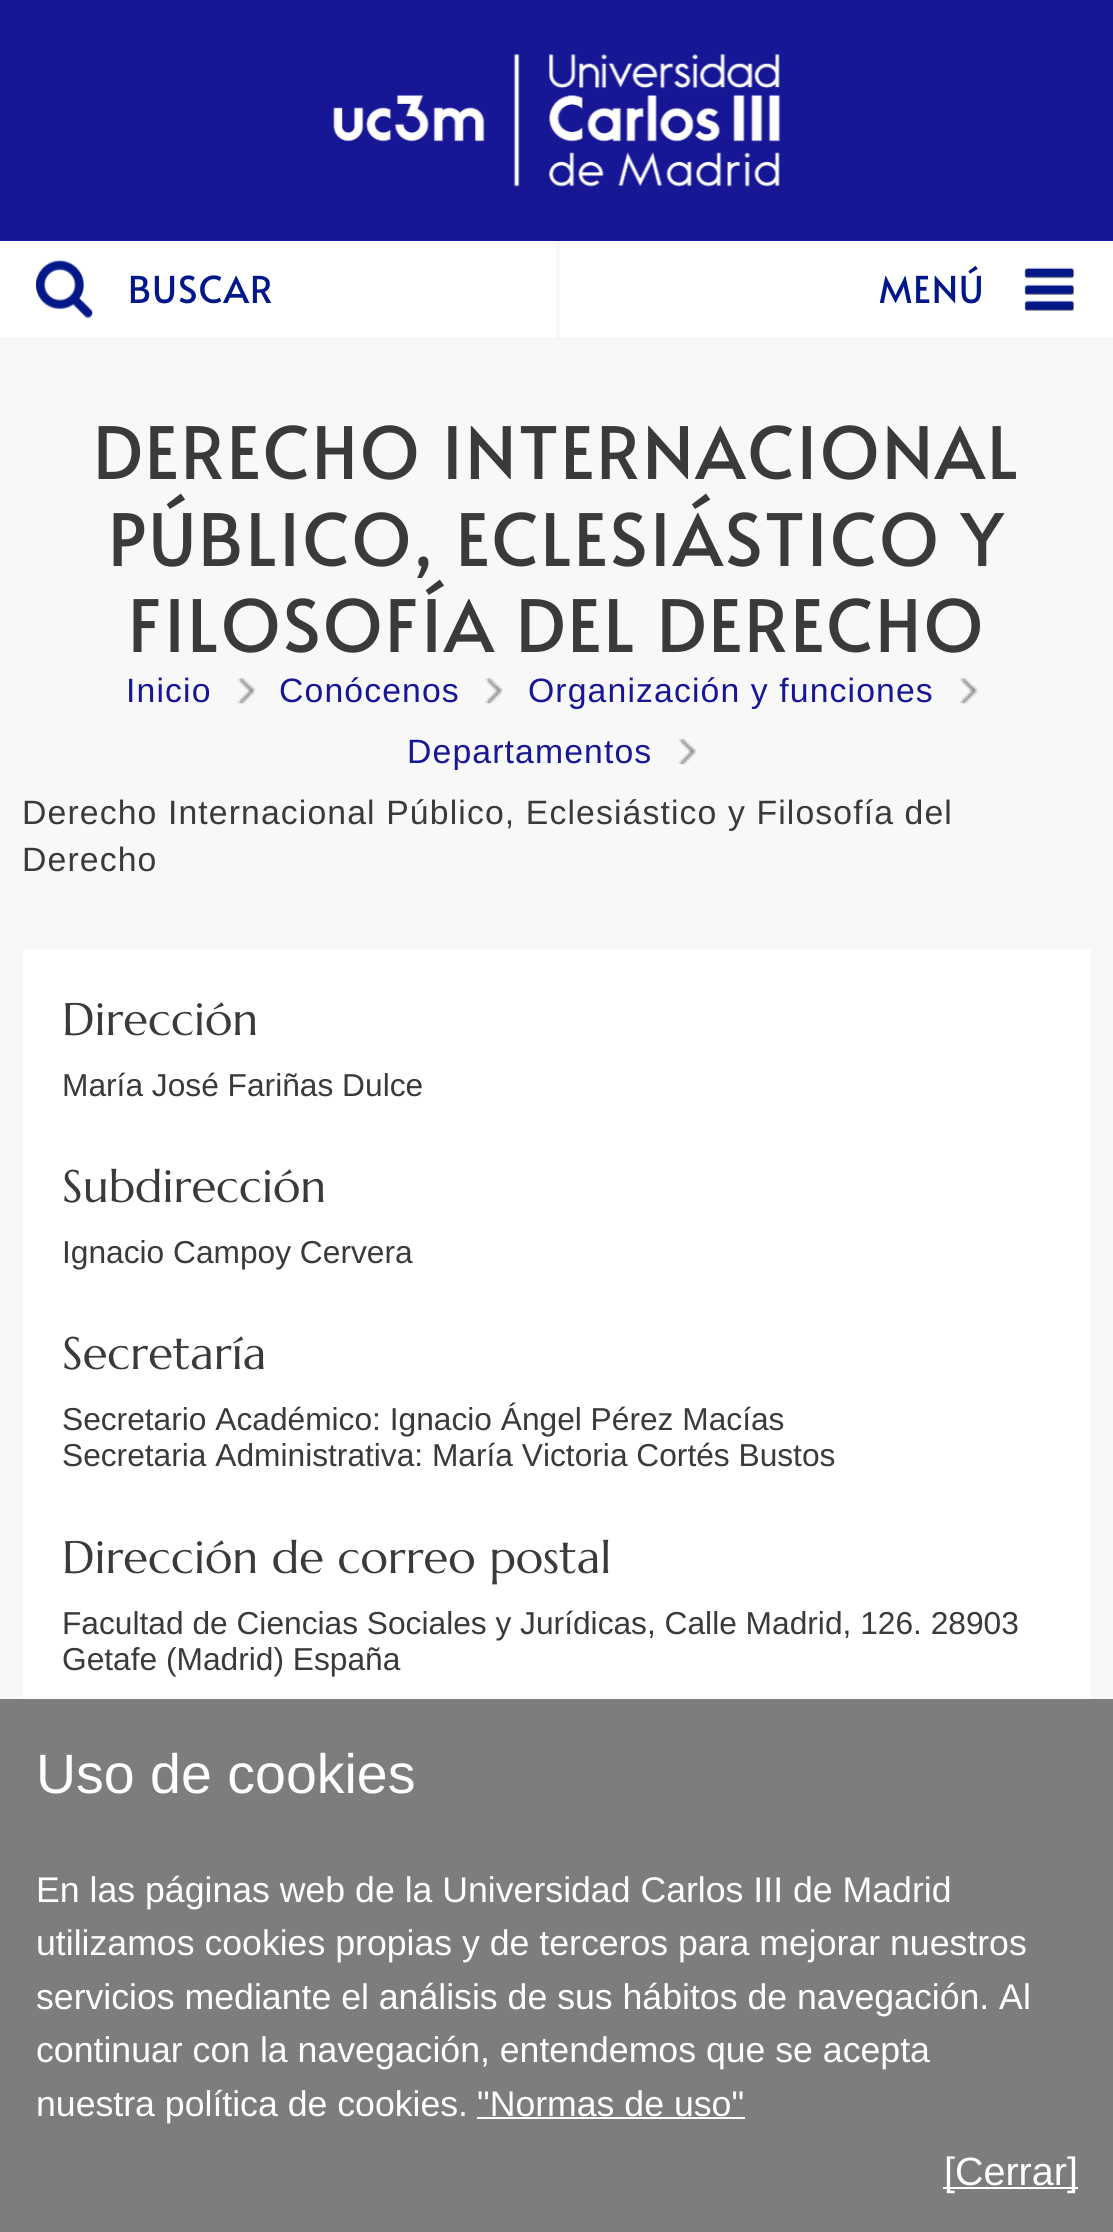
#include <cairo.h>
#include <math.h>
#include <stddef.h>


static void spaced_text(cairo_t *cr, double x, double y, const char *s, double letter, double word) {
    cairo_move_to(cr, x, y);
    while (*s) {
        char ch[5] = {0};
        int n = 0;
        do ch[n++] = *s++; while ((*s & 0xC0) == 0x80);
        cairo_show_text(cr, ch);
        cairo_rel_move_to(cr, letter + word * (*ch == ' '), 0);
    }
}

static void picture(cairo_t *cr, const char *path, double x, double y, double w, double h) {
    cairo_surface_t *image = cairo_image_surface_create_from_png(path);
    cairo_save(cr);
    cairo_set_source_surface(cr, image, x, y);
    cairo_rectangle(cr, x, y, w, h);
    cairo_fill(cr);
    cairo_restore(cr);
    cairo_surface_destroy(image);
}

int main(void) {
    cairo_surface_t *surface = cairo_image_surface_create(CAIRO_FORMAT_RGB24, 1113, 2232);
    cairo_t *cr = cairo_create(surface);
    cairo_font_options_t *options = cairo_font_options_create();
    cairo_font_options_set_hint_metrics(options, CAIRO_HINT_METRICS_OFF);
    cairo_font_options_set_hint_style(options, CAIRO_HINT_STYLE_NONE);
    cairo_set_font_options(cr, options);
    cairo_set_miter_limit(cr, 4);
    cairo_set_source_rgb(cr, 0.969, 0.969, 0.969);
    cairo_paint(cr);
    cairo_set_source_rgb(cr, 0.09, 0.09, 0.588);
    cairo_rectangle(cr, 0, 0, 1113, 241);
    cairo_fill(cr);
    picture(cr, "img1.png", 333, 54, 448, 133);
    cairo_set_source_rgb(cr, 1, 1, 1);
    cairo_rectangle(cr, 0, 241, 1113, 97);
    cairo_fill(cr);
    cairo_set_source_rgb(cr, 0.957, 0.957, 0.957);
    cairo_rectangle(cr, 0, 338, 1113, 2);
    cairo_fill(cr);
    cairo_set_source_rgb(cr, 0.969, 0.969, 0.969);
    cairo_rectangle(cr, 556, 241, 4, 97);
    cairo_fill(cr);
    picture(cr, "img2.png", 36, 260, 57, 58);
    cairo_select_font_face(cr, "Alata", CAIRO_FONT_SLANT_NORMAL, CAIRO_FONT_WEIGHT_NORMAL);
    cairo_set_font_size(cr, 37);
    cairo_set_source_rgb(cr, 0.008, 0.094, 0.537);
    spaced_text(cr, 128, 303, "BUSCAR", 1.12, 0);
    spaced_text(cr, 879, 303, "MENÚ", 1.12, 0);
    picture(cr, "img3.png", 1024, 267, 50, 44);
    cairo_set_font_size(cr, 72);
    cairo_set_source_rgb(cr, 0.227, 0.227, 0.227);
    spaced_text(cr, 93, 479, "DERECHO INTERNACIONAL", 2.25, 0);
    spaced_text(cr, 108, 566, "PÚBLICO, ECLESIÁSTICO Y", 2.25, 0);
    spaced_text(cr, 128, 652, "FILOSOFÍA DEL DERECHO", 2.25, 0);
    cairo_select_font_face(cr, "Liberation Sans", CAIRO_FONT_SLANT_NORMAL, CAIRO_FONT_WEIGHT_NORMAL);
    cairo_set_font_size(cr, 33.75);
    cairo_set_source_rgb(cr, 0.09, 0.09, 0.588);
    spaced_text(cr, 126, 702, "Inicio", 1.12, 0);
    picture(cr, "img4.png", 237, 677, 18, 27);
    spaced_text(cr, 279, 702, "Conócenos", 1.12, 0);
    picture(cr, "img5.png", 485, 677, 18, 27);
    spaced_text(cr, 528, 702, "Organización y funciones", 1.12, 0);
    picture(cr, "img6.png", 960, 677, 18, 27);
    spaced_text(cr, 407, 763, "Departamentos", 1.12, 0);
    picture(cr, "img7.png", 678, 738, 18, 26);
    cairo_set_source_rgb(cr, 0.227, 0.227, 0.227);
    spaced_text(cr, 22, 824, "Derecho Internacional Público, Eclesiástico y Filosofía del", 1.12, 0);
    spaced_text(cr, 22, 871, "Derecho", 1.12, 0);
    cairo_set_source_rgb(cr, 1, 1, 1);
    cairo_rectangle(cr, 23, 950, 1068, 749);
    cairo_fill(cr);
    cairo_select_font_face(cr, "Marcellus", CAIRO_FONT_SLANT_NORMAL, CAIRO_FONT_WEIGHT_NORMAL);
    cairo_set_font_size(cr, 45.5);
    cairo_set_source_rgb(cr, 0.227, 0.227, 0.227);
    cairo_move_to(cr, 62, 1035);
    cairo_show_text(cr, "Dirección");
    cairo_select_font_face(cr, "Liberation Sans", CAIRO_FONT_SLANT_NORMAL, CAIRO_FONT_WEIGHT_NORMAL);
    cairo_set_font_size(cr, 31.7);
    cairo_move_to(cr, 62, 1096);
    cairo_show_text(cr, "María José Fariñas Dulce");
    cairo_select_font_face(cr, "Marcellus", CAIRO_FONT_SLANT_NORMAL, CAIRO_FONT_WEIGHT_NORMAL);
    cairo_set_font_size(cr, 45.5);
    cairo_move_to(cr, 62, 1202);
    cairo_show_text(cr, "Subdirección");
    cairo_select_font_face(cr, "Liberation Sans", CAIRO_FONT_SLANT_NORMAL, CAIRO_FONT_WEIGHT_NORMAL);
    cairo_set_font_size(cr, 31.7);
    cairo_move_to(cr, 62, 1263);
    cairo_show_text(cr, "Ignacio Campoy Cervera");
    cairo_select_font_face(cr, "Marcellus", CAIRO_FONT_SLANT_NORMAL, CAIRO_FONT_WEIGHT_NORMAL);
    cairo_set_font_size(cr, 45.5);
    cairo_move_to(cr, 62, 1369);
    cairo_show_text(cr, "Secretaría");
    cairo_select_font_face(cr, "Liberation Sans", CAIRO_FONT_SLANT_NORMAL, CAIRO_FONT_WEIGHT_NORMAL);
    cairo_set_font_size(cr, 31.7);
    cairo_move_to(cr, 62, 1430);
    cairo_show_text(cr, "Secretario Académico: Ignacio Ángel Pérez Macías");
    cairo_move_to(cr, 62, 1466);
    cairo_show_text(cr, "Secretaria Administrativa: María Victoria Cortés Bustos");
    cairo_select_font_face(cr, "Marcellus", CAIRO_FONT_SLANT_NORMAL, CAIRO_FONT_WEIGHT_NORMAL);
    cairo_set_font_size(cr, 45.5);
    cairo_move_to(cr, 62, 1573);
    cairo_show_text(cr, "Dirección de correo postal");
    cairo_select_font_face(cr, "Liberation Sans", CAIRO_FONT_SLANT_NORMAL, CAIRO_FONT_WEIGHT_NORMAL);
    cairo_set_font_size(cr, 31.7);
    cairo_move_to(cr, 62, 1634);
    cairo_show_text(cr, "Facultad de Ciencias Sociales y Jurídicas, Calle Madrid, 126. 28903");
    cairo_move_to(cr, 62, 1670);
    cairo_show_text(cr, "Getafe (Madrid) España");
    cairo_set_source_rgb(cr, 0.49, 0.49, 0.49);
    cairo_rectangle(cr, 0, 1699, 1113, 533);
    cairo_fill(cr);
    cairo_set_font_size(cr, 55.5);
    cairo_set_source_rgb(cr, 1, 1, 1);
    cairo_move_to(cr, 36, 1793);
    cairo_show_text(cr, "Uso de cookies");
    cairo_set_font_size(cr, 35.65);
    cairo_move_to(cr, 36, 1902);
    cairo_show_text(cr, "En las páginas web de la Universidad Carlos III de Madrid");
    cairo_move_to(cr, 36, 1955);
    cairo_show_text(cr, "utilizamos cookies propias y de terceros para mejorar nuestros");
    cairo_move_to(cr, 36, 2009);
    cairo_show_text(cr, "servicios mediante el análisis de sus hábitos de navegación. Al");
    cairo_move_to(cr, 36, 2062);
    cairo_show_text(cr, "continuar con la navegación, entendemos que se acepta");
    cairo_move_to(cr, 36, 2116);
    cairo_show_text(cr, "nuestra política de cookies.");
    cairo_move_to(cr, 477, 2116);
    cairo_show_text(cr, "\"Normas de uso\"");
    cairo_rectangle(cr, 477, 2117, 268, 2);
    cairo_fill(cr);
    cairo_rectangle(cr, 943, 2187, 135, 2);
    cairo_fill(cr);
    cairo_set_font_size(cr, 39.5);
    cairo_move_to(cr, 944, 2185);
    cairo_show_text(cr, "[Cerrar]");
    cairo_surface_write_to_png(surface, "page.png");
    cairo_font_options_destroy(options);
    cairo_destroy(cr);
    cairo_surface_destroy(surface);
    return 0;
}
